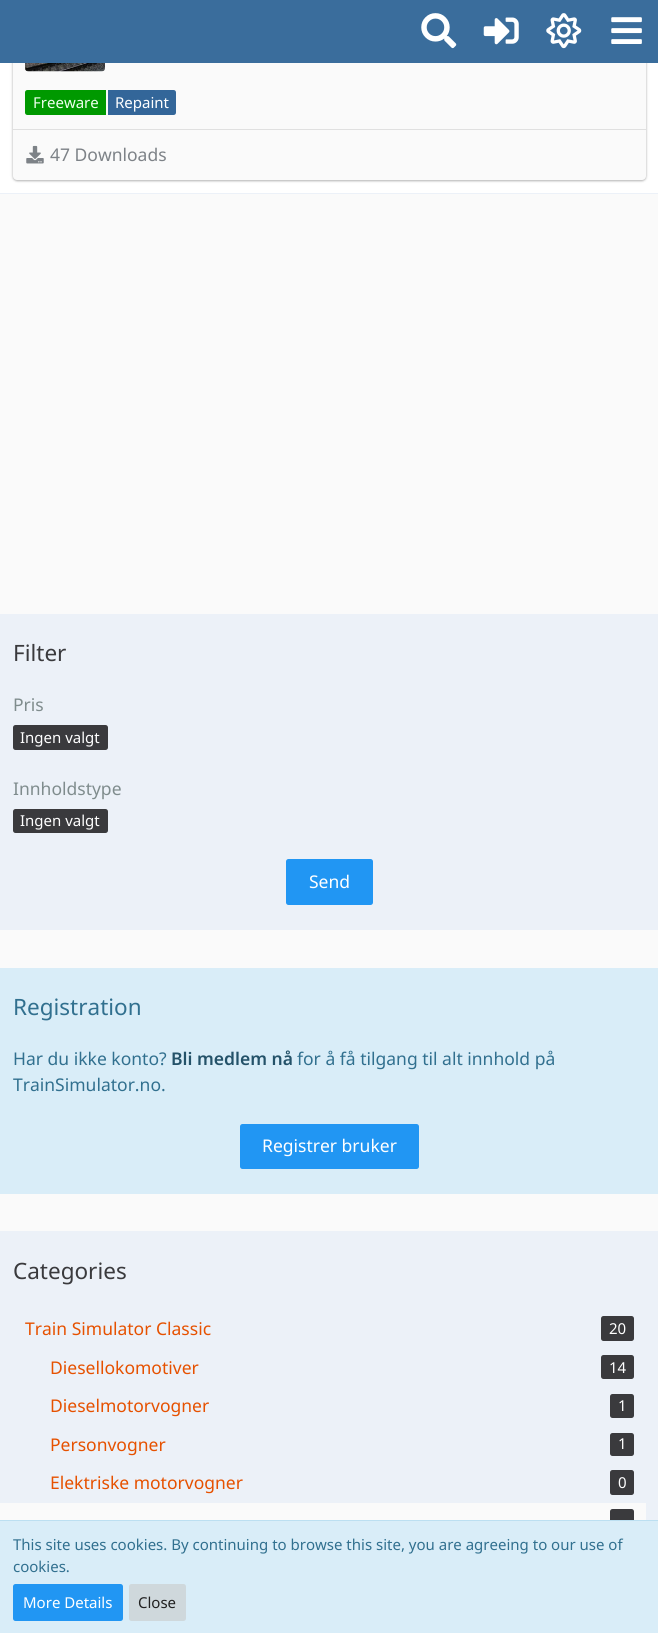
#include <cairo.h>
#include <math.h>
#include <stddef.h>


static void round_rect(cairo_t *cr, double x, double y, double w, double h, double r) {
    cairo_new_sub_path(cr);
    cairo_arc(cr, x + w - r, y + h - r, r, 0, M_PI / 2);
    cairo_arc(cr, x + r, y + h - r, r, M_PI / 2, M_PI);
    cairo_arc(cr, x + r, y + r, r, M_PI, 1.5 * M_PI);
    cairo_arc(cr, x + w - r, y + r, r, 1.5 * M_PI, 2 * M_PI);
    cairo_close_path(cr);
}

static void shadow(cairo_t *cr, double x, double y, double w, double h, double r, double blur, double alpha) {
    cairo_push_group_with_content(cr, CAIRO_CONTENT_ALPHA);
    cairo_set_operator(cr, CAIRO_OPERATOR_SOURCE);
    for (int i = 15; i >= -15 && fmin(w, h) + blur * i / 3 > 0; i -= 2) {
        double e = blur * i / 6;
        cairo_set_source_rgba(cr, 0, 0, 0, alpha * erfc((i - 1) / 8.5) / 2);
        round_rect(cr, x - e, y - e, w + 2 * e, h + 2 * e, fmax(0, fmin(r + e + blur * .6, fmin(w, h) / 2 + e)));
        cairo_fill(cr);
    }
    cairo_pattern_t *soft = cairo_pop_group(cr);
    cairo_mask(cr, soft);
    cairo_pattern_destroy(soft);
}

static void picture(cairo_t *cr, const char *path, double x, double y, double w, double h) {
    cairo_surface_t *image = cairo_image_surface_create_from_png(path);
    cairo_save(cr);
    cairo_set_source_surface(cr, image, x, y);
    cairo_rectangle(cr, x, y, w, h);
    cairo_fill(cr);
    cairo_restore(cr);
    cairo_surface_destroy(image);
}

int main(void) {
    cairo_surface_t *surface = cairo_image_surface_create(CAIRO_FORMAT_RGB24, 658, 1633);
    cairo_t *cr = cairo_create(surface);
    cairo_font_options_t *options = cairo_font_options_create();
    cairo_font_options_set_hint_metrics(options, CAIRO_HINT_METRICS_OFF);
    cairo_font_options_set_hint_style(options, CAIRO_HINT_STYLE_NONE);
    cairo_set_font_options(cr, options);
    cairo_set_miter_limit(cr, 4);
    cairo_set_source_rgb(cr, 0.98, 0.98, 0.98);
    cairo_paint(cr);
    cairo_set_source_rgb(cr, 1, 1, 1);
    cairo_rectangle(cr, 0, 63, 658, 130);
    cairo_fill(cr);
    cairo_set_source_rgb(cr, 0, 0, 0);
    shadow(cr, 13, -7, 633, 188, 4, 1, 0.24);
    shadow(cr, 13, -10, 633, 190, 4, 2, 0.12);
    cairo_set_source_rgb(cr, 0.98, 0.98, 0.98);
    round_rect(cr, 13, -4, 633, 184, 4);
    cairo_fill(cr);
    cairo_set_source_rgb(cr, 0.227, 0.427, 0.612);
    cairo_rectangle(cr, 0, 0, 658, 63);
    cairo_fill(cr);
    picture(cr, "img1.png", 421, 13, 36, 36);
    picture(cr, "img2.png", 546, 13, 36, 36);
    picture(cr, "img3.png", 483, 17, 36, 28);
    picture(cr, "img4.png", 611, 17, 31, 27);
    cairo_set_source_rgb(cr, 0.925, 0.945, 0.969);
    cairo_rectangle(cr, 0, 193, 658, 1);
    cairo_fill(cr);
    picture(cr, "img5.png", 25, 63, 80, 9);
    cairo_set_source_rgb(cr, 0, 0.6, 0);
    cairo_new_path(cr);
    cairo_move_to(cr, 27.5, 90);
    cairo_line_to(cr, 106, 90);
    cairo_line_to(cr, 106, 115);
    cairo_line_to(cr, 27.5, 115);
    cairo_curve_to(cr, 26, 115, 25, 114, 25, 112.5);
    cairo_line_to(cr, 25, 92.5);
    cairo_curve_to(cr, 25, 91, 26, 90, 27.5, 90);
    cairo_close_path(cr);
    cairo_fill(cr);
    cairo_select_font_face(cr, "Noto Sans", CAIRO_FONT_SLANT_NORMAL, CAIRO_FONT_WEIGHT_NORMAL);
    cairo_set_font_size(cr, 15);
    cairo_set_source_rgb(cr, 0.933, 1, 0.933);
    cairo_move_to(cr, 33, 108);
    cairo_show_text(cr, "Freeware");
    cairo_set_source_rgb(cr, 0.2, 0.4, 0.6);
    cairo_new_path(cr);
    cairo_move_to(cr, 108, 90);
    cairo_line_to(cr, 173.5, 90);
    cairo_curve_to(cr, 175, 90, 176, 91, 176, 92.5);
    cairo_line_to(cr, 176, 112.5);
    cairo_curve_to(cr, 176, 114, 175, 115, 173.5, 115);
    cairo_line_to(cr, 108, 115);
    cairo_close_path(cr);
    cairo_fill(cr);
    cairo_set_source_rgb(cr, 1, 1, 1);
    cairo_move_to(cr, 115, 108);
    cairo_show_text(cr, "Repaint");
    cairo_set_source_rgb(cr, 0.878, 0.878, 0.878);
    cairo_rectangle(cr, 13, 129, 633, 1);
    cairo_fill(cr);
    picture(cr, "img6.png", 26, 145, 18, 19);
    cairo_set_font_size(cr, 17.5);
    cairo_set_source_rgb(cr, 0.49, 0.51, 0.529);
    cairo_move_to(cr, 50, 161);
    cairo_show_text(cr, "47 Downloads");
    cairo_set_source_rgb(cr, 0.925, 0.945, 0.969);
    cairo_rectangle(cr, 0, 614, 658, 316);
    cairo_fill(cr);
    cairo_set_font_size(cr, 22.5);
    cairo_set_source_rgb(cr, 0.227, 0.227, 0.239);
    cairo_move_to(cr, 13, 661);
    cairo_show_text(cr, "Filter");
    cairo_set_font_size(cr, 17.5);
    cairo_set_source_rgb(cr, 0.498, 0.549, 0.553);
    cairo_move_to(cr, 13, 711);
    cairo_show_text(cr, "Pris");
    cairo_set_source_rgb(cr, 0.227, 0.227, 0.239);
    round_rect(cr, 13, 725, 95, 25, 2.5);
    cairo_fill(cr);
    cairo_set_font_size(cr, 15);
    cairo_set_source_rgb(cr, 1, 1, 1);
    cairo_move_to(cr, 20, 743);
    cairo_show_text(cr, "Ingen valgt");
    cairo_set_font_size(cr, 17.5);
    cairo_set_source_rgb(cr, 0.498, 0.549, 0.553);
    cairo_move_to(cr, 13, 795);
    cairo_show_text(cr, "Innholdstype");
    cairo_set_source_rgb(cr, 0.227, 0.227, 0.239);
    round_rect(cr, 13, 809, 95, 24, 2.5);
    cairo_fill(cr);
    cairo_set_font_size(cr, 15);
    cairo_set_source_rgb(cr, 1, 1, 1);
    cairo_move_to(cr, 20, 826);
    cairo_show_text(cr, "Ingen valgt");
    cairo_set_source_rgb(cr, 0.129, 0.588, 0.953);
    round_rect(cr, 286, 859, 87, 46, 2.5);
    cairo_fill(cr);
    cairo_set_font_size(cr, 17.5);
    cairo_set_source_rgb(cr, 1, 1, 1);
    cairo_move_to(cr, 309, 888);
    cairo_show_text(cr, "Send");
    cairo_set_source_rgb(cr, 0.851, 0.929, 0.969);
    cairo_rectangle(cr, 0, 968, 658, 226);
    cairo_fill(cr);
    cairo_set_font_size(cr, 22.5);
    cairo_set_source_rgb(cr, 0.192, 0.439, 0.561);
    cairo_move_to(cr, 13, 1015);
    cairo_show_text(cr, "Registration");
    cairo_set_font_size(cr, 17.5);
    cairo_move_to(cr, 13, 1065);
    cairo_show_text(cr, "Har du ikke konto?");
    cairo_select_font_face(cr, "Noto Sans SemiBold", CAIRO_FONT_SLANT_NORMAL, CAIRO_FONT_WEIGHT_NORMAL);
    cairo_set_source_rgb(cr, 0.141, 0.322, 0.412);
    cairo_move_to(cr, 171, 1065);
    cairo_show_text(cr, "Bli medlem nå");
    cairo_select_font_face(cr, "Noto Sans", CAIRO_FONT_SLANT_NORMAL, CAIRO_FONT_WEIGHT_NORMAL);
    cairo_set_source_rgb(cr, 0.192, 0.439, 0.561);
    cairo_move_to(cr, 297, 1065);
    cairo_show_text(cr, "for å få tilgang til alt innhold på");
    cairo_move_to(cr, 13, 1091);
    cairo_show_text(cr, "TrainSimulator.no.");
    cairo_set_source_rgb(cr, 0.129, 0.588, 0.953);
    round_rect(cr, 240, 1124, 179, 45, 2.5);
    cairo_fill(cr);
    cairo_set_source_rgb(cr, 1, 1, 1);
    cairo_move_to(cr, 262, 1152);
    cairo_show_text(cr, "Registrer bruker");
    cairo_set_source_rgb(cr, 0.925, 0.945, 0.969);
    cairo_rectangle(cr, 0, 1231, 658, 289);
    cairo_fill(cr);
    cairo_set_font_size(cr, 22.5);
    cairo_set_source_rgb(cr, 0.227, 0.227, 0.239);
    cairo_move_to(cr, 13, 1279);
    cairo_show_text(cr, "Categories");
    cairo_set_font_size(cr, 17.5);
    cairo_set_source_rgb(cr, 0.902, 0.318, 0);
    cairo_move_to(cr, 25, 1335);
    cairo_show_text(cr, "Train Simulator Classic");
    cairo_set_source_rgb(cr, 0.227, 0.227, 0.239);
    round_rect(cr, 601, 1316, 33, 25, 2.5);
    cairo_fill(cr);
    cairo_set_font_size(cr, 15);
    cairo_set_source_rgb(cr, 1, 1, 1);
    cairo_move_to(cr, 609, 1334);
    cairo_show_text(cr, "20");
    cairo_set_font_size(cr, 17.5);
    cairo_set_source_rgb(cr, 0.902, 0.318, 0);
    cairo_move_to(cr, 50, 1374);
    cairo_show_text(cr, "Diesellokomotiver");
    cairo_set_source_rgb(cr, 0.227, 0.227, 0.239);
    round_rect(cr, 601, 1355, 33, 24, 2.5);
    cairo_fill(cr);
    cairo_set_font_size(cr, 15);
    cairo_set_source_rgb(cr, 1, 1, 1);
    cairo_move_to(cr, 609, 1373);
    cairo_show_text(cr, "14");
    cairo_set_font_size(cr, 17.5);
    cairo_set_source_rgb(cr, 0.902, 0.318, 0);
    cairo_move_to(cr, 50, 1412);
    cairo_show_text(cr, "Dieselmotorvogner");
    cairo_set_source_rgb(cr, 0.227, 0.227, 0.239);
    round_rect(cr, 610, 1394, 24, 24, 2.5);
    cairo_fill(cr);
    cairo_set_font_size(cr, 15);
    cairo_set_source_rgb(cr, 1, 1, 1);
    cairo_move_to(cr, 618, 1411);
    cairo_show_text(cr, "1");
    cairo_set_font_size(cr, 17.5);
    cairo_set_source_rgb(cr, 0.902, 0.318, 0);
    cairo_move_to(cr, 50, 1451);
    cairo_show_text(cr, "Personvogner");
    cairo_set_source_rgb(cr, 0.227, 0.227, 0.239);
    round_rect(cr, 610, 1433, 24, 23, 2.5);
    cairo_fill(cr);
    cairo_set_font_size(cr, 15);
    cairo_set_source_rgb(cr, 1, 1, 1);
    cairo_move_to(cr, 618, 1449);
    cairo_show_text(cr, "1");
    cairo_set_font_size(cr, 17.5);
    cairo_set_source_rgb(cr, 0.902, 0.318, 0);
    cairo_move_to(cr, 50, 1489);
    cairo_show_text(cr, "Elektriske motorvogner");
    cairo_set_source_rgb(cr, 0.227, 0.227, 0.239);
    round_rect(cr, 610, 1470, 24, 25, 2.5);
    cairo_fill(cr);
    cairo_set_font_size(cr, 15);
    cairo_set_source_rgb(cr, 1, 1, 1);
    cairo_move_to(cr, 618, 1488);
    cairo_show_text(cr, "0");
    cairo_set_source_rgb(cr, 0.98, 0.98, 0.98);
    cairo_rectangle(cr, 0, 1503, 646, 17);
    cairo_fill(cr);
    cairo_set_source_rgb(cr, 0.227, 0.227, 0.239);
    round_rect(cr, 610, 1509, 24, 24, 2.5);
    cairo_fill(cr);
    cairo_set_source_rgb(cr, 0.851, 0.929, 0.969);
    cairo_rectangle(cr, 0, 1521, 658, 112);
    cairo_fill(cr);
    cairo_set_source_rgb(cr, 0.737, 0.875, 0.945);
    cairo_rectangle(cr, 0, 1520, 658, 1);
    cairo_fill(cr);
    cairo_set_source_rgb(cr, 0.192, 0.439, 0.561);
    cairo_move_to(cr, 13, 1550);
    cairo_show_text(cr, "This site uses cookies. By continuing to browse this site, you are agreeing to our use of");
    cairo_move_to(cr, 13, 1572);
    cairo_show_text(cr, "cookies.");
    cairo_set_source_rgb(cr, 0.129, 0.588, 0.953);
    round_rect(cr, 13, 1584, 110, 37, 2.5);
    cairo_fill(cr);
    cairo_set_source_rgb(cr, 1, 1, 1);
    cairo_move_to(cr, 23, 1608);
    cairo_show_text(cr, "More Details");
    cairo_set_source_rgb(cr, 0.812, 0.847, 0.863);
    round_rect(cr, 129, 1584, 57, 37, 2.5);
    cairo_fill(cr);
    cairo_set_source_rgb(cr, 0.129, 0.129, 0.129);
    cairo_move_to(cr, 138, 1608);
    cairo_show_text(cr, "Close");
    cairo_surface_write_to_png(surface, "page.png");
    cairo_font_options_destroy(options);
    cairo_destroy(cr);
    cairo_surface_destroy(surface);
    return 0;
}
